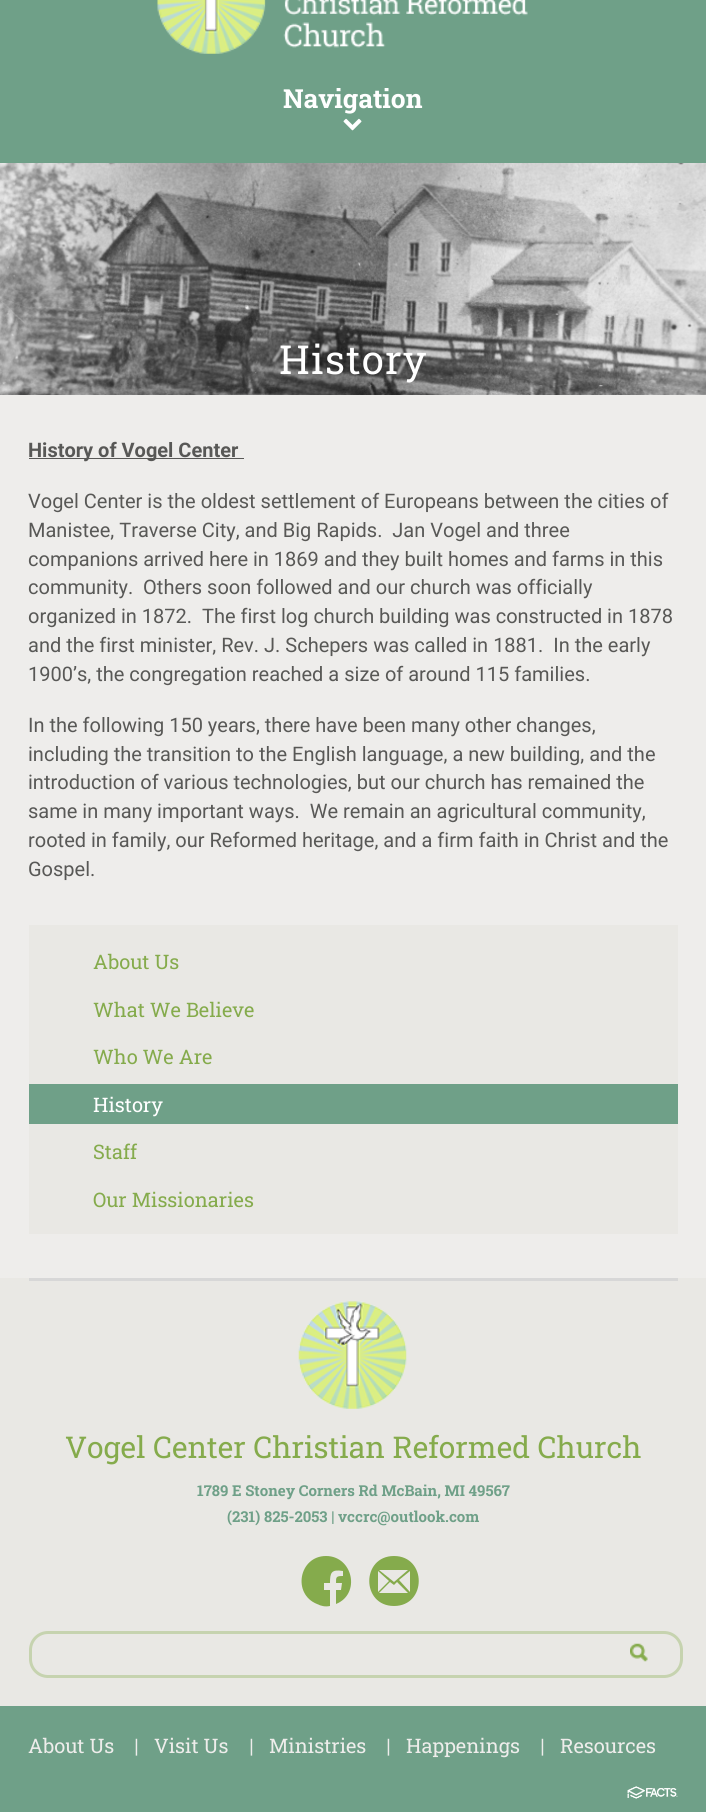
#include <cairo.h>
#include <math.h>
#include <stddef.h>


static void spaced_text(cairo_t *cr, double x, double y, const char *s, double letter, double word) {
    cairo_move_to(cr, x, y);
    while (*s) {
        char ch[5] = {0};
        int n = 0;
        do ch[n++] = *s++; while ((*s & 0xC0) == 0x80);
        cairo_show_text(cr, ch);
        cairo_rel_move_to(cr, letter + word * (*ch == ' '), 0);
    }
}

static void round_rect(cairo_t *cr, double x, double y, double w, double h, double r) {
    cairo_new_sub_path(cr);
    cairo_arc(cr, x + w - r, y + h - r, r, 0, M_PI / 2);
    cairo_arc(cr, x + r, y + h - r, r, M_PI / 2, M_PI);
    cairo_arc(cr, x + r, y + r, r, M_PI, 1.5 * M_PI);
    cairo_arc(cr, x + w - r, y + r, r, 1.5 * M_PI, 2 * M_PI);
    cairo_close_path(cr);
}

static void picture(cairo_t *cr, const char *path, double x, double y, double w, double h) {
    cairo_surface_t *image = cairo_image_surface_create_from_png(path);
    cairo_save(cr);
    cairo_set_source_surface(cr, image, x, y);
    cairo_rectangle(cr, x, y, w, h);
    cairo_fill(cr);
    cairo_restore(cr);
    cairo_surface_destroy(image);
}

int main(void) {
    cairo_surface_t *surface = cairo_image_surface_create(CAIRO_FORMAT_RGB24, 706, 1812);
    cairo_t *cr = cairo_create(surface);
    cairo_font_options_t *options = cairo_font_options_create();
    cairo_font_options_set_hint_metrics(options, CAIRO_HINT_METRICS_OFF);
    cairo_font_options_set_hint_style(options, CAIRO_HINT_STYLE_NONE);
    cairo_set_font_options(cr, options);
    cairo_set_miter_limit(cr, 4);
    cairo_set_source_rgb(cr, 0.933, 0.929, 0.918);
    cairo_paint(cr);
    cairo_set_source_rgb(cr, 0.435, 0.627, 0.533);
    cairo_rectangle(cr, 0, 0, 706, 163);
    cairo_fill(cr);
    picture(cr, "img1.png", 157, 0, 371, 54);
    cairo_select_font_face(cr, "Roboto Slab", CAIRO_FONT_SLANT_NORMAL, CAIRO_FONT_WEIGHT_BOLD);
    cairo_set_font_size(cr, 26.25);
    cairo_set_source_rgb(cr, 1, 1, 1);
    cairo_move_to(cr, 283, 108);
    cairo_show_text(cr, "Navigation");
    picture(cr, "img2.png", 343, 118, 19, 13);
    picture(cr, "img3.png", 0, 163, 706, 232);
    cairo_select_font_face(cr, "Roboto Slab", CAIRO_FONT_SLANT_NORMAL, CAIRO_FONT_WEIGHT_NORMAL);
    cairo_set_font_size(cr, 40);
    spaced_text(cr, 279, 374, "History", 1.25, 0);
    cairo_set_source_rgb(cr, 0.345, 0.345, 0.337);
    cairo_rectangle(cr, 29, 458, 215, 1);
    cairo_fill(cr);
    cairo_select_font_face(cr, "Roboto", CAIRO_FONT_SLANT_NORMAL, CAIRO_FONT_WEIGHT_BOLD);
    cairo_set_font_size(cr, 20);
    cairo_move_to(cr, 28, 457);
    cairo_show_text(cr, "History of Vogel Center");
    cairo_select_font_face(cr, "Roboto", CAIRO_FONT_SLANT_NORMAL, CAIRO_FONT_WEIGHT_NORMAL);
    cairo_move_to(cr, 28, 508);
    cairo_show_text(cr, "Vogel Center is the oldest settlement of Europeans between the cities of");
    cairo_move_to(cr, 28, 537);
    cairo_show_text(cr, "Manistee, Traverse City, and Big Rapids.  Jan Vogel and three");
    cairo_move_to(cr, 28, 566);
    cairo_show_text(cr, "companions arrived here in 1869 and they built homes and farms in this");
    cairo_move_to(cr, 28, 594);
    cairo_show_text(cr, "community.  Others soon followed and our church was officially");
    cairo_move_to(cr, 28, 623);
    cairo_show_text(cr, "organized in 1872.  The first log church building was constructed in 1878");
    cairo_move_to(cr, 28, 652);
    cairo_show_text(cr, "and the first minister, Rev. J. Schepers was called in 1881.  In the early");
    cairo_move_to(cr, 28, 681);
    cairo_show_text(cr, "1900’s, the congregation reached a size of around 115 families.");
    cairo_move_to(cr, 28, 732);
    cairo_show_text(cr, "In the following 150 years, there have been many other changes,");
    cairo_move_to(cr, 28, 761);
    cairo_show_text(cr, "including the transition to the English language, a new building, and the");
    cairo_move_to(cr, 28, 789);
    cairo_show_text(cr, "introduction of various technologies, but our church has remained the");
    cairo_move_to(cr, 28, 818);
    cairo_show_text(cr, "same in many important ways.  We remain an agricultural community,");
    cairo_move_to(cr, 28, 847);
    cairo_show_text(cr, "rooted in family, our Reformed heritage, and a firm faith in Christ and the");
    cairo_move_to(cr, 28, 876);
    cairo_show_text(cr, "Gospel.");
    cairo_set_source_rgb(cr, 0.914, 0.91, 0.894);
    cairo_rectangle(cr, 29, 925, 649, 309);
    cairo_fill(cr);
    cairo_select_font_face(cr, "Roboto Slab", CAIRO_FONT_SLANT_NORMAL, CAIRO_FONT_WEIGHT_NORMAL);
    cairo_set_source_rgb(cr, 0.522, 0.671, 0.298);
    cairo_move_to(cr, 93, 969);
    cairo_show_text(cr, "About Us");
    cairo_move_to(cr, 93, 1017);
    cairo_show_text(cr, "What We Believe");
    cairo_move_to(cr, 93, 1064);
    cairo_show_text(cr, "Who We Are");
    cairo_set_source_rgb(cr, 0.435, 0.627, 0.533);
    cairo_rectangle(cr, 29, 1084, 649, 40);
    cairo_fill(cr);
    cairo_set_source_rgb(cr, 1, 1, 1);
    cairo_move_to(cr, 93, 1112);
    cairo_show_text(cr, "History");
    cairo_set_source_rgb(cr, 0.522, 0.671, 0.298);
    cairo_move_to(cr, 93, 1159);
    cairo_show_text(cr, "Staff");
    cairo_move_to(cr, 93, 1207);
    cairo_show_text(cr, "Our Missionaries");
    cairo_set_source_rgb(cr, 0.914, 0.91, 0.894);
    cairo_rectangle(cr, 0, 1278, 706, 428);
    cairo_fill(cr);
    cairo_set_source_rgb(cr, 0.843, 0.843, 0.843);
    cairo_rectangle(cr, 29, 1278, 649, 3);
    cairo_fill(cr);
    picture(cr, "img4.png", 298, 1301, 109, 108);
    cairo_set_font_size(cr, 30);
    cairo_set_source_rgb(cr, 0.522, 0.671, 0.298);
    cairo_move_to(cr, 65, 1458);
    cairo_show_text(cr, "Vogel Center Christian Reformed Church");
    cairo_select_font_face(cr, "Roboto Slab", CAIRO_FONT_SLANT_NORMAL, CAIRO_FONT_WEIGHT_BOLD);
    cairo_set_font_size(cr, 15);
    cairo_set_source_rgb(cr, 0.435, 0.627, 0.533);
    cairo_move_to(cr, 197, 1496);
    cairo_show_text(cr, "1789 E Stoney Corners Rd McBain, MI 49567");
    cairo_move_to(cr, 227, 1522);
    cairo_show_text(cr, "(231) 825-2053 | vccrc@outlook.com");
    cairo_set_source_rgb(cr, 0.522, 0.671, 0.298);
    cairo_new_path(cr);
    cairo_move_to(cr, 326, 1556);
    cairo_curve_to(cr, 353, 1556, 361, 1594, 336, 1604);
    cairo_line_to(cr, 336, 1590);
    cairo_line_to(cr, 341, 1590);
    cairo_line_to(cr, 342, 1583);
    cairo_line_to(cr, 336, 1583);
    cairo_curve_to(cr, 336, 1577, 336, 1576, 343, 1576);
    cairo_line_to(cr, 343, 1571);
    cairo_curve_to(cr, 331, 1569, 330, 1573, 330, 1583);
    cairo_line_to(cr, 324, 1583);
    cairo_line_to(cr, 324, 1590);
    cairo_line_to(cr, 330, 1590);
    cairo_line_to(cr, 330, 1606);
    cairo_curve_to(cr, 325, 1607, 321, 1606, 317, 1604);
    cairo_curve_to(cr, 292, 1594, 299, 1556, 326, 1556);
    cairo_close_path(cr);
    cairo_fill(cr);
    cairo_new_path(cr);
    cairo_move_to(cr, 394, 1556);
    cairo_curve_to(cr, 427, 1556, 427, 1606, 394, 1606);
    cairo_curve_to(cr, 361, 1606, 361, 1556, 394, 1556);
    cairo_close_path(cr);
    cairo_move_to(cr, 408, 1570);
    cairo_line_to(cr, 379, 1570);
    cairo_line_to(cr, 394, 1582);
    cairo_close_path(cr);
    cairo_move_to(cr, 378, 1571);
    cairo_line_to(cr, 378, 1592);
    cairo_line_to(cr, 389, 1581);
    cairo_close_path(cr);
    cairo_move_to(cr, 394, 1593);
    cairo_line_to(cr, 408, 1593);
    cairo_line_to(cr, 397, 1582);
    cairo_line_to(cr, 394, 1585);
    cairo_line_to(cr, 390, 1582);
    cairo_line_to(cr, 379, 1593);
    cairo_close_path(cr);
    cairo_move_to(cr, 410, 1592);
    cairo_line_to(cr, 410, 1571);
    cairo_line_to(cr, 399, 1580);
    cairo_close_path(cr);
    cairo_fill(cr);
    round_rect(cr, 30.5, 1632.5, 651, 44, 17.5);
    cairo_set_source_rgb(cr, 0.776, 0.827, 0.686);
    cairo_set_line_width(cr, 3);
    cairo_stroke(cr);
    picture(cr, "img5.png", 630, 1643, 18, 19);
    cairo_set_source_rgb(cr, 0.435, 0.627, 0.533);
    cairo_rectangle(cr, 0, 1706, 706, 106);
    cairo_fill(cr);
    cairo_select_font_face(cr, "Roboto Slab", CAIRO_FONT_SLANT_NORMAL, CAIRO_FONT_WEIGHT_NORMAL);
    cairo_set_font_size(cr, 20);
    cairo_set_source_rgb(cr, 0.933, 0.929, 0.918);
    cairo_move_to(cr, 28, 1753);
    cairo_show_text(cr, "About Us");
    cairo_select_font_face(cr, "Roboto", CAIRO_FONT_SLANT_NORMAL, CAIRO_FONT_WEIGHT_NORMAL);
    cairo_move_to(cr, 134, 1753);
    cairo_show_text(cr, "|");
    cairo_select_font_face(cr, "Roboto Slab", CAIRO_FONT_SLANT_NORMAL, CAIRO_FONT_WEIGHT_NORMAL);
    cairo_move_to(cr, 154, 1753);
    cairo_show_text(cr, "Visit Us");
    cairo_select_font_face(cr, "Roboto", CAIRO_FONT_SLANT_NORMAL, CAIRO_FONT_WEIGHT_NORMAL);
    cairo_move_to(cr, 249, 1753);
    cairo_show_text(cr, "|");
    cairo_select_font_face(cr, "Roboto Slab", CAIRO_FONT_SLANT_NORMAL, CAIRO_FONT_WEIGHT_NORMAL);
    cairo_move_to(cr, 269, 1753);
    cairo_show_text(cr, "Ministries");
    cairo_select_font_face(cr, "Roboto", CAIRO_FONT_SLANT_NORMAL, CAIRO_FONT_WEIGHT_NORMAL);
    cairo_move_to(cr, 386, 1753);
    cairo_show_text(cr, "|");
    cairo_select_font_face(cr, "Roboto Slab", CAIRO_FONT_SLANT_NORMAL, CAIRO_FONT_WEIGHT_NORMAL);
    cairo_move_to(cr, 406, 1753);
    cairo_show_text(cr, "Happenings");
    cairo_select_font_face(cr, "Roboto", CAIRO_FONT_SLANT_NORMAL, CAIRO_FONT_WEIGHT_NORMAL);
    cairo_move_to(cr, 540, 1753);
    cairo_show_text(cr, "|");
    cairo_select_font_face(cr, "Roboto Slab", CAIRO_FONT_SLANT_NORMAL, CAIRO_FONT_WEIGHT_NORMAL);
    cairo_move_to(cr, 560, 1753);
    cairo_show_text(cr, "Resources");
    picture(cr, "img6.png", 627, 1786, 51, 13);
    cairo_surface_write_to_png(surface, "page.png");
    cairo_font_options_destroy(options);
    cairo_destroy(cr);
    cairo_surface_destroy(surface);
    return 0;
}
